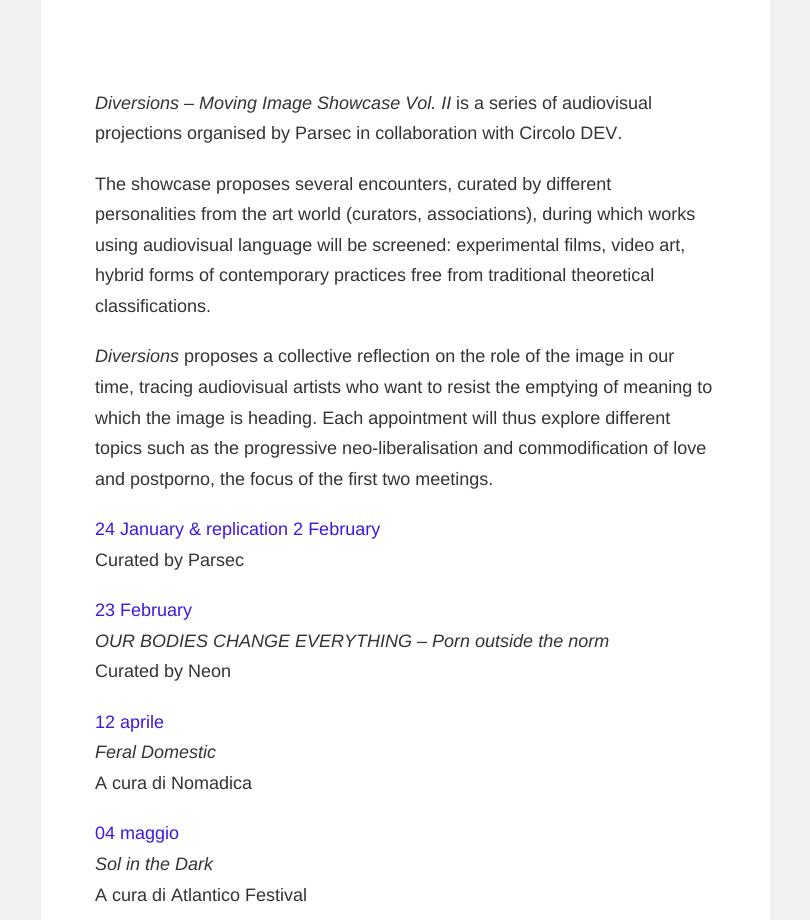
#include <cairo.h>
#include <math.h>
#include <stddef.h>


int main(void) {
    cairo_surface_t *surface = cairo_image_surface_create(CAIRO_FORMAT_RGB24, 810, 920);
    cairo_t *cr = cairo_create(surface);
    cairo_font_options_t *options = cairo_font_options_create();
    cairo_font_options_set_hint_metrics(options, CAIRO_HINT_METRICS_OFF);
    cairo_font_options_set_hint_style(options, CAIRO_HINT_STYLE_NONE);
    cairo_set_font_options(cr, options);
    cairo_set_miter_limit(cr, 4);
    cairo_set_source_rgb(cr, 0.949, 0.949, 0.949);
    cairo_paint(cr);
    cairo_set_source_rgb(cr, 1, 1, 1);
    cairo_rectangle(cr, 41, 0, 729, 920);
    cairo_fill(cr);
    cairo_select_font_face(cr, "Liberation Sans", CAIRO_FONT_SLANT_ITALIC, CAIRO_FONT_WEIGHT_NORMAL);
    cairo_set_font_size(cr, 18);
    cairo_set_source_rgb(cr, 0.2, 0.2, 0.2);
    cairo_move_to(cr, 95, 109);
    cairo_show_text(cr, "Diversions – Moving Image Showcase Vol. II");
    cairo_select_font_face(cr, "Liberation Sans", CAIRO_FONT_SLANT_NORMAL, CAIRO_FONT_WEIGHT_NORMAL);
    cairo_move_to(cr, 456, 109);
    cairo_show_text(cr, "is a series of audiovisual");
    cairo_move_to(cr, 95, 139);
    cairo_show_text(cr, "projections organised by Parsec in collaboration with Circolo DEV.");
    cairo_move_to(cr, 95, 190);
    cairo_show_text(cr, "The showcase proposes several encounters, curated by different");
    cairo_move_to(cr, 95, 220);
    cairo_show_text(cr, "personalities from the art world (curators, associations), during which works");
    cairo_move_to(cr, 95, 251);
    cairo_show_text(cr, "using audiovisual language will be screened: experimental films, video art,");
    cairo_move_to(cr, 95, 281);
    cairo_show_text(cr, "hybrid forms of contemporary practices free from traditional theoretical");
    cairo_move_to(cr, 95, 312);
    cairo_show_text(cr, "classifications.");
    cairo_select_font_face(cr, "Liberation Sans", CAIRO_FONT_SLANT_ITALIC, CAIRO_FONT_WEIGHT_NORMAL);
    cairo_move_to(cr, 95, 362);
    cairo_show_text(cr, "Diversions");
    cairo_select_font_face(cr, "Liberation Sans", CAIRO_FONT_SLANT_NORMAL, CAIRO_FONT_WEIGHT_NORMAL);
    cairo_move_to(cr, 184, 362);
    cairo_show_text(cr, "proposes a collective reflection on the role of the image in our");
    cairo_move_to(cr, 95, 393);
    cairo_show_text(cr, "time, tracing audiovisual artists who want to resist the emptying of meaning to");
    cairo_move_to(cr, 95, 424);
    cairo_show_text(cr, "which the image is heading. Each appointment will thus explore different");
    cairo_move_to(cr, 95, 454);
    cairo_show_text(cr, "topics such as the progressive neo-liberalisation and commodification of love");
    cairo_move_to(cr, 95, 485);
    cairo_show_text(cr, "and postporno, the focus of the first two meetings.");
    cairo_set_source_rgb(cr, 0.255, 0.086, 0.867);
    cairo_move_to(cr, 95, 535);
    cairo_show_text(cr, "24 January & replication 2 February");
    cairo_set_source_rgb(cr, 0.2, 0.2, 0.2);
    cairo_move_to(cr, 95, 566);
    cairo_show_text(cr, "Curated by Parsec");
    cairo_set_source_rgb(cr, 0.255, 0.086, 0.867);
    cairo_move_to(cr, 95, 616);
    cairo_show_text(cr, "23 February");
    cairo_select_font_face(cr, "Liberation Sans", CAIRO_FONT_SLANT_ITALIC, CAIRO_FONT_WEIGHT_NORMAL);
    cairo_set_source_rgb(cr, 0.2, 0.2, 0.2);
    cairo_move_to(cr, 95, 647);
    cairo_show_text(cr, "OUR BODIES CHANGE EVERYTHING – Porn outside the norm");
    cairo_select_font_face(cr, "Liberation Sans", CAIRO_FONT_SLANT_NORMAL, CAIRO_FONT_WEIGHT_NORMAL);
    cairo_move_to(cr, 95, 677);
    cairo_show_text(cr, "Curated by Neon");
    cairo_set_source_rgb(cr, 0.255, 0.086, 0.867);
    cairo_move_to(cr, 95, 728);
    cairo_show_text(cr, "12 aprile");
    cairo_select_font_face(cr, "Liberation Sans", CAIRO_FONT_SLANT_ITALIC, CAIRO_FONT_WEIGHT_NORMAL);
    cairo_set_source_rgb(cr, 0.2, 0.2, 0.2);
    cairo_move_to(cr, 95, 758);
    cairo_show_text(cr, "Feral Domestic");
    cairo_select_font_face(cr, "Liberation Sans", CAIRO_FONT_SLANT_NORMAL, CAIRO_FONT_WEIGHT_NORMAL);
    cairo_move_to(cr, 95, 789);
    cairo_show_text(cr, "A cura di Nomadica");
    cairo_set_source_rgb(cr, 0.255, 0.086, 0.867);
    cairo_move_to(cr, 95, 839);
    cairo_show_text(cr, "04 maggio");
    cairo_select_font_face(cr, "Liberation Sans", CAIRO_FONT_SLANT_ITALIC, CAIRO_FONT_WEIGHT_NORMAL);
    cairo_set_source_rgb(cr, 0.2, 0.2, 0.2);
    cairo_move_to(cr, 95, 870);
    cairo_show_text(cr, "Sol in the Dark");
    cairo_select_font_face(cr, "Liberation Sans", CAIRO_FONT_SLANT_NORMAL, CAIRO_FONT_WEIGHT_NORMAL);
    cairo_move_to(cr, 95, 901);
    cairo_show_text(cr, "A cura di Atlantico Festival");
    cairo_surface_write_to_png(surface, "page.png");
    cairo_font_options_destroy(options);
    cairo_destroy(cr);
    cairo_surface_destroy(surface);
    return 0;
}
